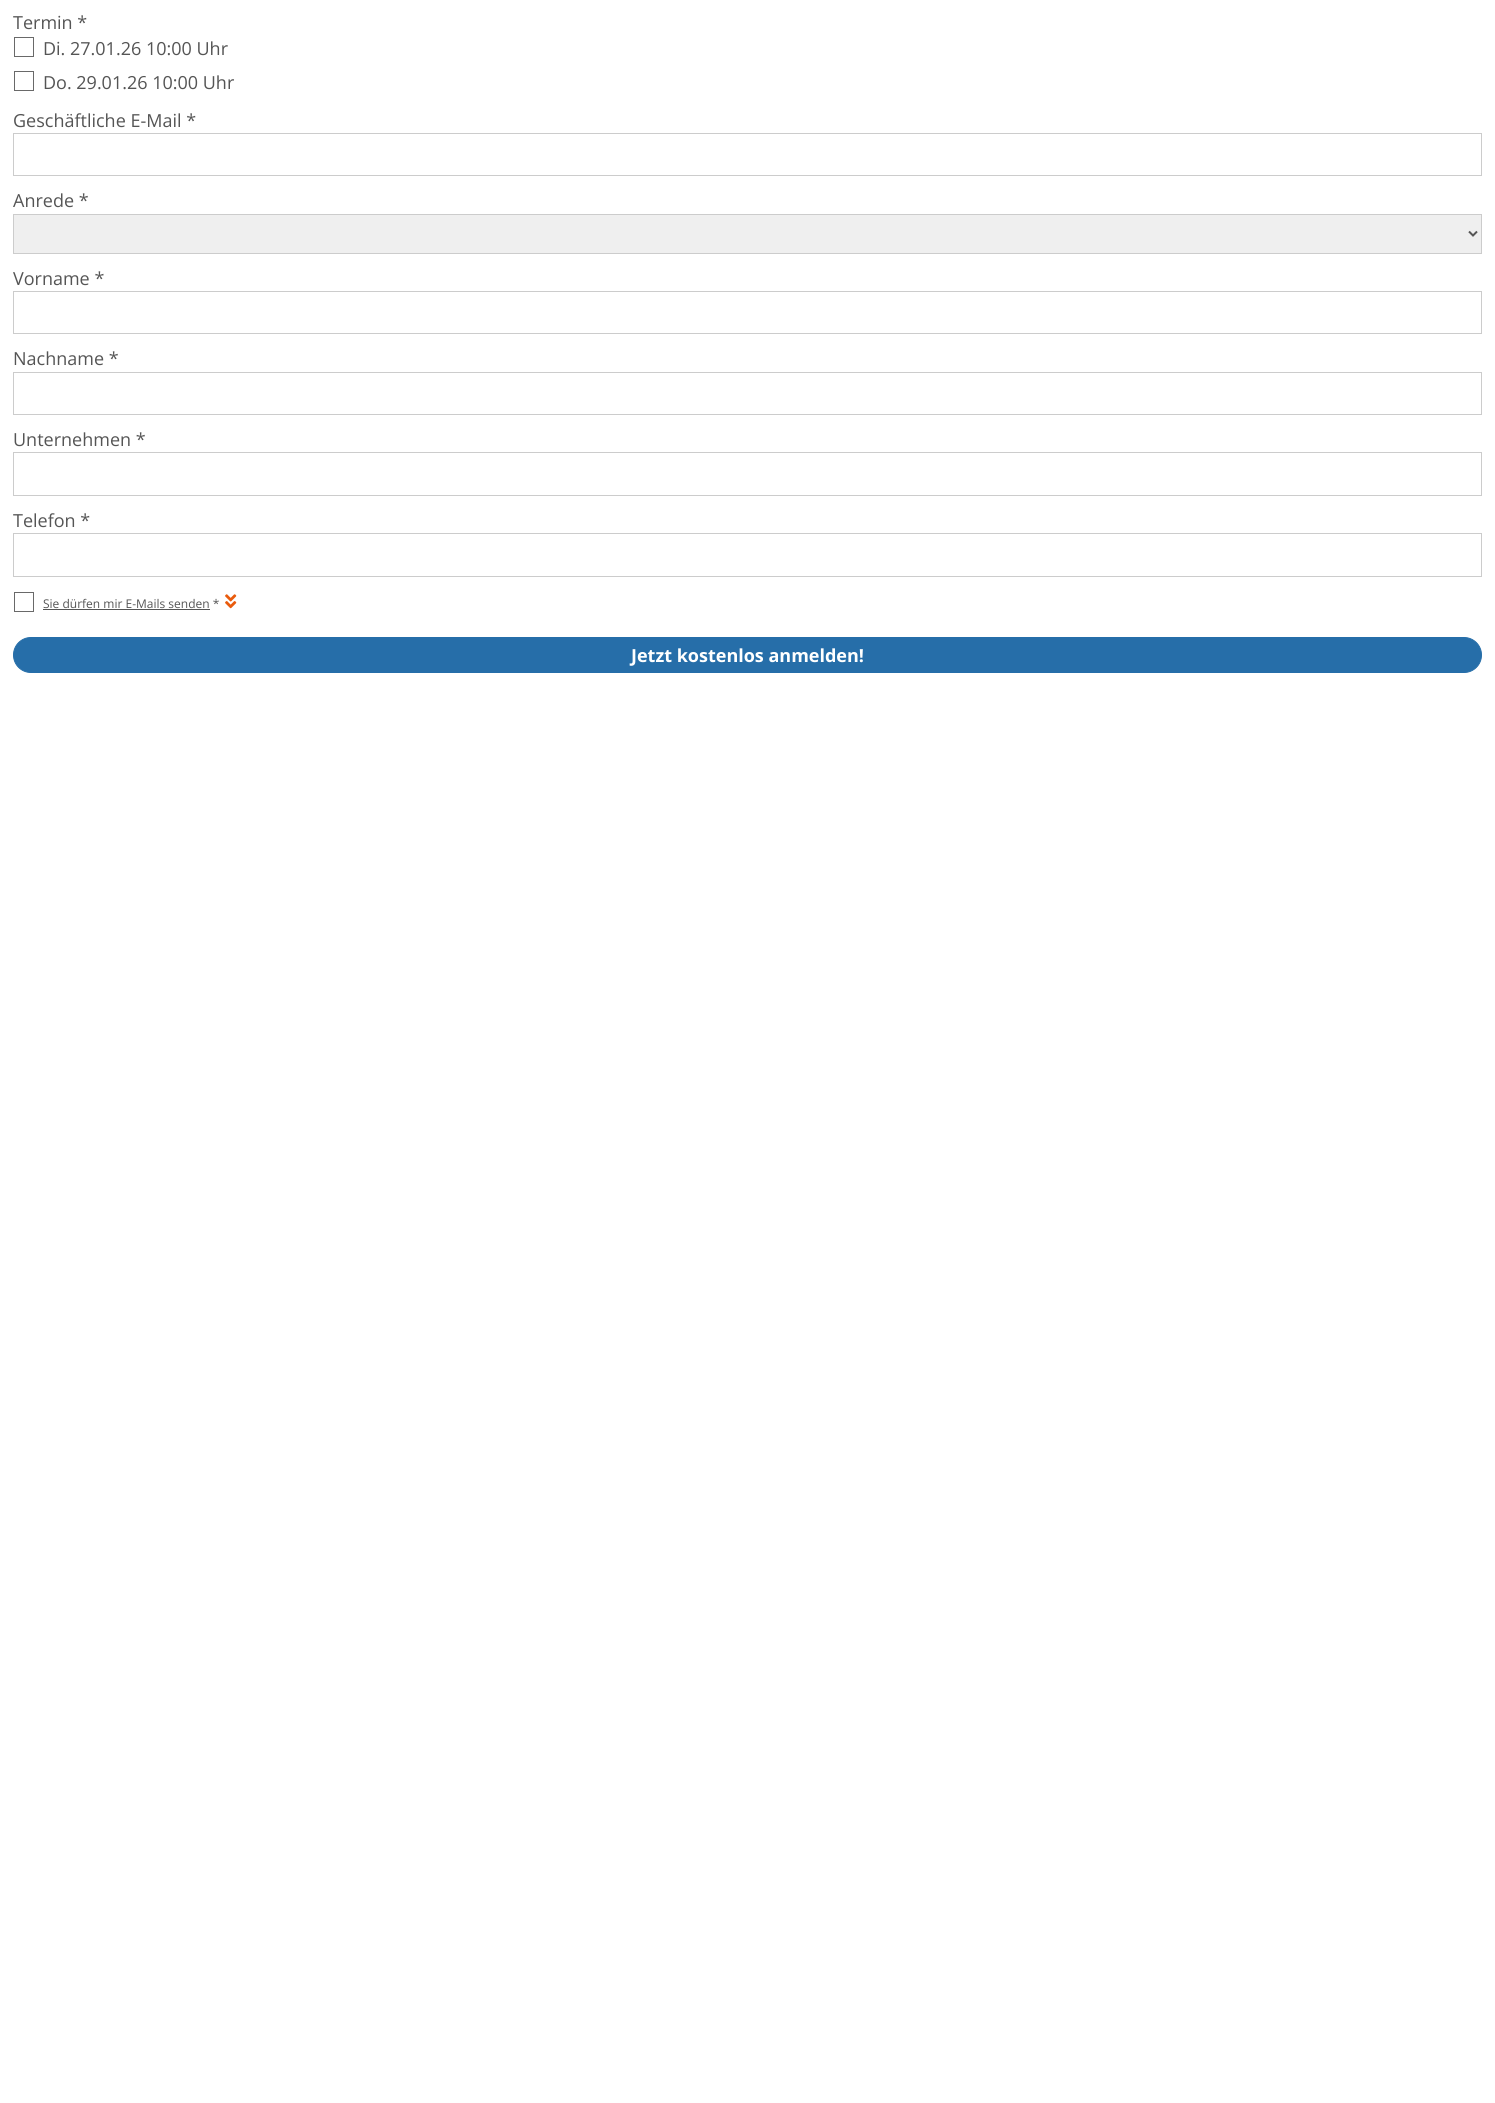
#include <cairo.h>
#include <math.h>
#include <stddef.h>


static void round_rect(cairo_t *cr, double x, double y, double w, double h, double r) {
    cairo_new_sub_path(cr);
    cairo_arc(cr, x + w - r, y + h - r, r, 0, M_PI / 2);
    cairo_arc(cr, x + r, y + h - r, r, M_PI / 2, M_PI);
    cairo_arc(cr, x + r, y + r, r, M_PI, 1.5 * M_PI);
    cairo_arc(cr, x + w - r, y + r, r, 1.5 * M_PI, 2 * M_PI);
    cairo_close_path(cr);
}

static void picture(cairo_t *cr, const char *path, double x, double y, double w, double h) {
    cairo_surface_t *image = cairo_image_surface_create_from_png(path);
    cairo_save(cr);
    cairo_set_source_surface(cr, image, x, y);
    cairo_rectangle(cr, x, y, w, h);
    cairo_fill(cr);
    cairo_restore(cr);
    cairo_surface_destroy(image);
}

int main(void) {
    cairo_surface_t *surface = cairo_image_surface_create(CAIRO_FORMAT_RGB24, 1495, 2103);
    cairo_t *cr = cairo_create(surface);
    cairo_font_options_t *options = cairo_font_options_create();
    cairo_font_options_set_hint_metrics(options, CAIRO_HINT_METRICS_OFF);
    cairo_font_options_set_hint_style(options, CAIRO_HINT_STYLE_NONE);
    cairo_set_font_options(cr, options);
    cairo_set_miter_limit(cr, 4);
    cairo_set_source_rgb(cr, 1, 1, 1);
    cairo_paint(cr);
    cairo_select_font_face(cr, "Open Sans", CAIRO_FONT_SLANT_NORMAL, CAIRO_FONT_WEIGHT_NORMAL);
    cairo_set_font_size(cr, 18);
    cairo_set_source_rgb(cr, 0.333, 0.333, 0.333);
    cairo_move_to(cr, 13, 29);
    cairo_show_text(cr, "Termin *");
    cairo_rectangle(cr, 14.5, 37.5, 19, 19);
    cairo_set_source_rgb(cr, 0.412, 0.412, 0.412);
    cairo_set_line_width(cr, 1);
    cairo_stroke(cr);
    cairo_set_source_rgb(cr, 0.333, 0.333, 0.333);
    cairo_move_to(cr, 43, 55);
    cairo_show_text(cr, "Di. 27.01.26 10:00 Uhr");
    cairo_rectangle(cr, 14.5, 71.5, 19, 19);
    cairo_set_source_rgb(cr, 0.412, 0.412, 0.412);
    cairo_stroke(cr);
    cairo_set_source_rgb(cr, 0.333, 0.333, 0.333);
    cairo_move_to(cr, 43, 89);
    cairo_show_text(cr, "Do. 29.01.26 10:00 Uhr");
    cairo_move_to(cr, 13, 127);
    cairo_show_text(cr, "Geschäftliche E-Mail *");
    cairo_rectangle(cr, 13.5, 133.5, 1468, 42);
    cairo_set_source_rgb(cr, 0.8, 0.8, 0.8);
    cairo_stroke(cr);
    cairo_set_source_rgb(cr, 0.333, 0.333, 0.333);
    cairo_move_to(cr, 13, 207);
    cairo_show_text(cr, "Anrede *");
    cairo_set_source_rgb(cr, 0.937, 0.937, 0.937);
    cairo_rectangle(cr, 13.5, 214.5, 1468, 39);
    cairo_fill_preserve(cr);
    cairo_set_source_rgb(cr, 0.8, 0.8, 0.8);
    cairo_stroke(cr);
    cairo_new_path(cr);
    cairo_move_to(cr, 1469, 231.5);
    cairo_line_to(cr, 1473, 235.5);
    cairo_line_to(cr, 1477, 231.5);
    cairo_set_source_rgb(cr, 0.333, 0.333, 0.333);
    cairo_set_line_width(cr, 2);
    cairo_stroke(cr);
    cairo_move_to(cr, 13, 285);
    cairo_show_text(cr, "Vorname *");
    cairo_rectangle(cr, 13.5, 291.5, 1468, 42);
    cairo_set_source_rgb(cr, 0.8, 0.8, 0.8);
    cairo_set_line_width(cr, 1);
    cairo_stroke(cr);
    cairo_set_source_rgb(cr, 0.333, 0.333, 0.333);
    cairo_move_to(cr, 13, 365);
    cairo_show_text(cr, "Nachname *");
    cairo_rectangle(cr, 13.5, 372.5, 1468, 42);
    cairo_set_source_rgb(cr, 0.8, 0.8, 0.8);
    cairo_stroke(cr);
    cairo_set_source_rgb(cr, 0.333, 0.333, 0.333);
    cairo_move_to(cr, 13, 446);
    cairo_show_text(cr, "Unternehmen *");
    cairo_rectangle(cr, 13.5, 452.5, 1468, 43);
    cairo_set_source_rgb(cr, 0.8, 0.8, 0.8);
    cairo_stroke(cr);
    cairo_set_source_rgb(cr, 0.333, 0.333, 0.333);
    cairo_move_to(cr, 13, 527);
    cairo_show_text(cr, "Telefon *");
    cairo_rectangle(cr, 13.5, 533.5, 1468, 43);
    cairo_set_source_rgb(cr, 0.8, 0.8, 0.8);
    cairo_stroke(cr);
    cairo_rectangle(cr, 14.5, 592.5, 19, 19);
    cairo_set_source_rgb(cr, 0.412, 0.412, 0.412);
    cairo_stroke(cr);
    cairo_set_font_size(cr, 12);
    cairo_set_source_rgb(cr, 0.333, 0.333, 0.333);
    cairo_move_to(cr, 43, 608);
    cairo_show_text(cr, "Sie dürfen mir E-Mails senden *");
    cairo_rectangle(cr, 43, 609, 167, 1);
    cairo_fill(cr);
    picture(cr, "img1.png", 225, 594, 12, 15);
    cairo_set_source_rgb(cr, 0.149, 0.431, 0.663);
    round_rect(cr, 13.5, 637.5, 1468, 35, 17.5);
    cairo_fill_preserve(cr);
    cairo_stroke(cr);
    cairo_select_font_face(cr, "Open Sans", CAIRO_FONT_SLANT_NORMAL, CAIRO_FONT_WEIGHT_BOLD);
    cairo_set_font_size(cr, 18);
    cairo_set_source_rgb(cr, 1, 1, 1);
    cairo_move_to(cr, 631, 662);
    cairo_show_text(cr, "Jetzt kostenlos anmelden!");
    cairo_surface_write_to_png(surface, "page.png");
    cairo_font_options_destroy(options);
    cairo_destroy(cr);
    cairo_surface_destroy(surface);
    return 0;
}
